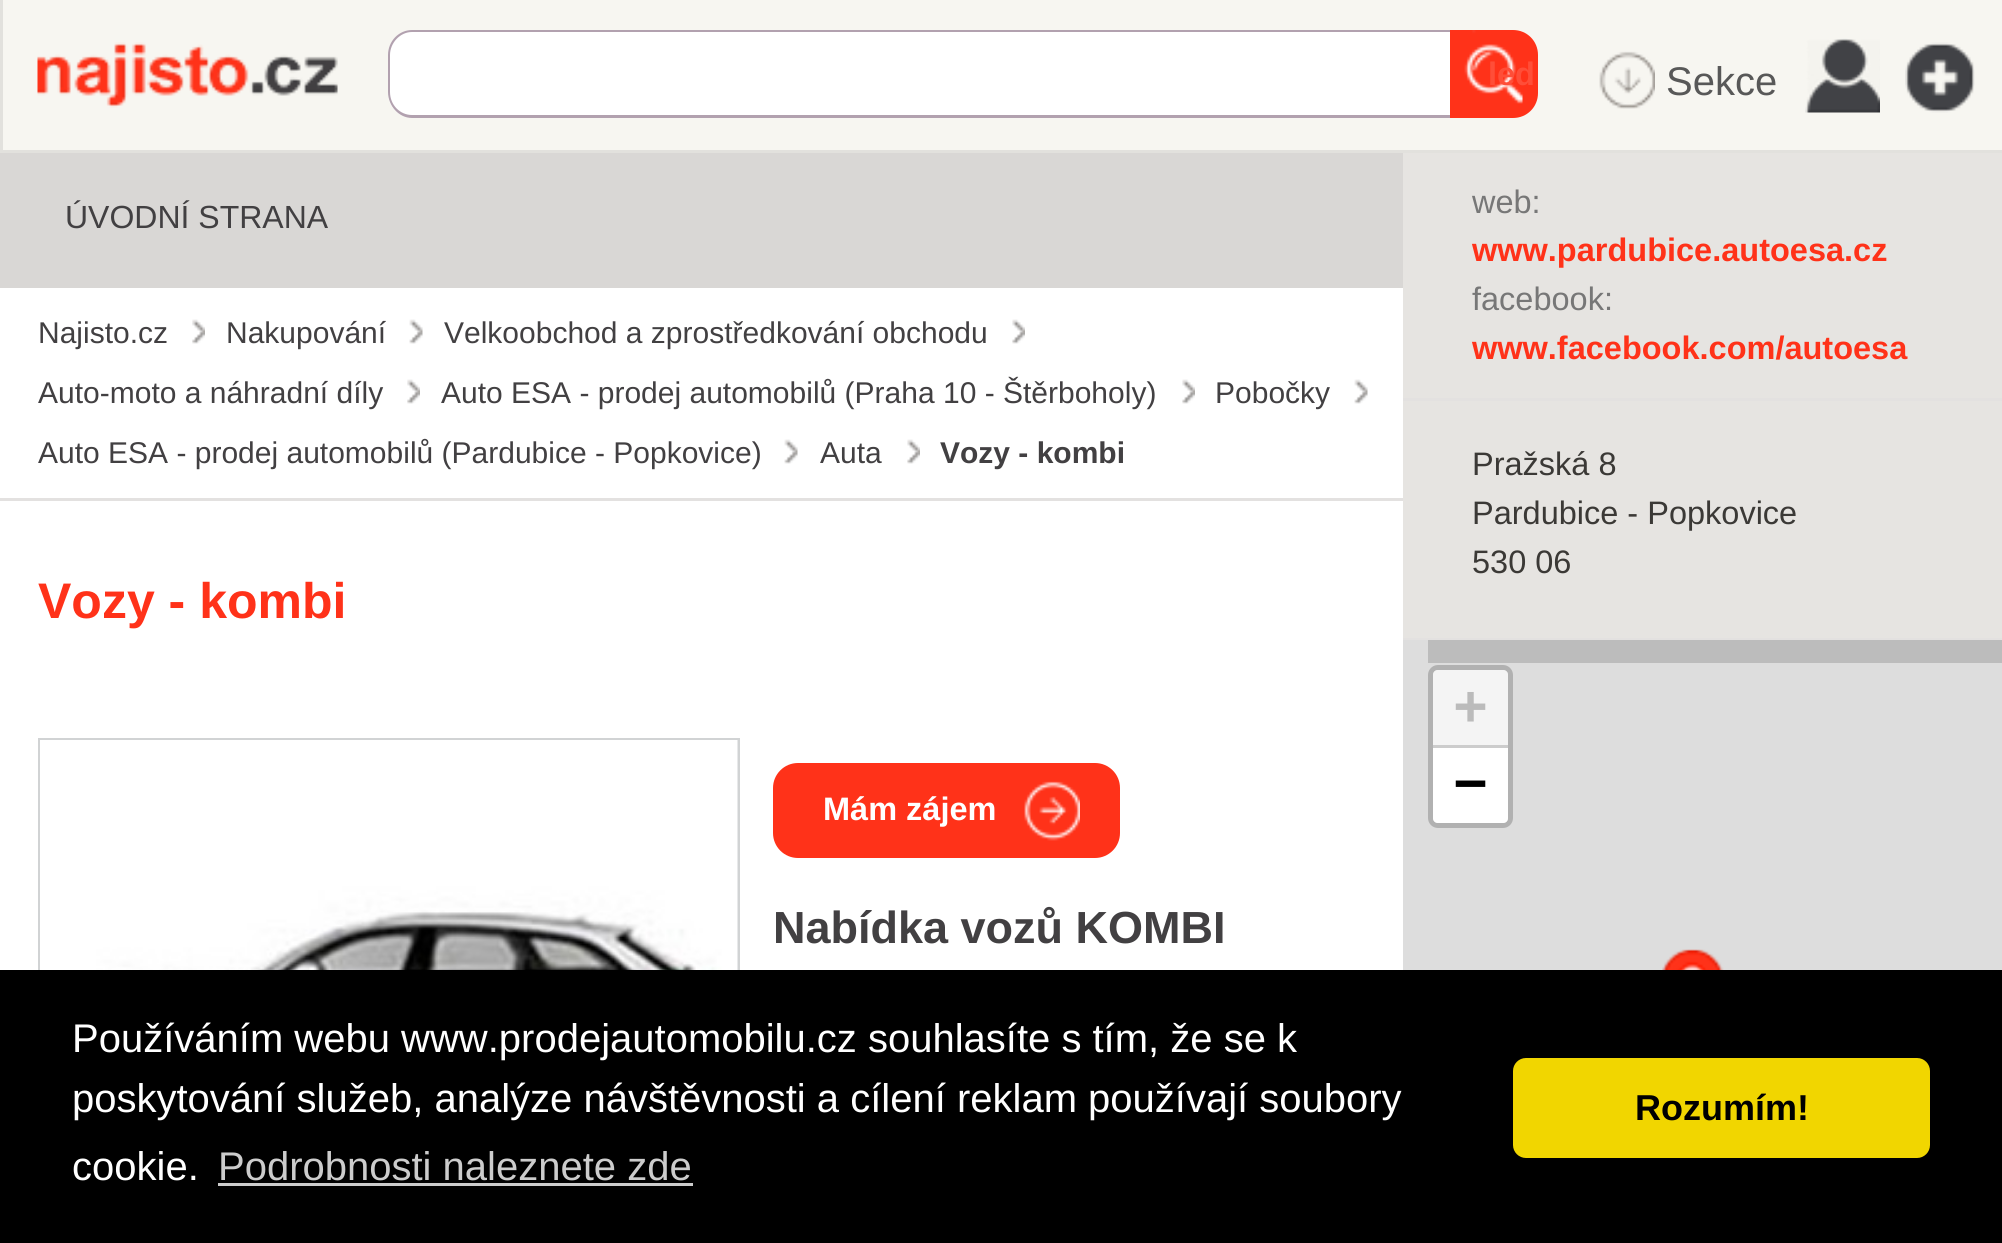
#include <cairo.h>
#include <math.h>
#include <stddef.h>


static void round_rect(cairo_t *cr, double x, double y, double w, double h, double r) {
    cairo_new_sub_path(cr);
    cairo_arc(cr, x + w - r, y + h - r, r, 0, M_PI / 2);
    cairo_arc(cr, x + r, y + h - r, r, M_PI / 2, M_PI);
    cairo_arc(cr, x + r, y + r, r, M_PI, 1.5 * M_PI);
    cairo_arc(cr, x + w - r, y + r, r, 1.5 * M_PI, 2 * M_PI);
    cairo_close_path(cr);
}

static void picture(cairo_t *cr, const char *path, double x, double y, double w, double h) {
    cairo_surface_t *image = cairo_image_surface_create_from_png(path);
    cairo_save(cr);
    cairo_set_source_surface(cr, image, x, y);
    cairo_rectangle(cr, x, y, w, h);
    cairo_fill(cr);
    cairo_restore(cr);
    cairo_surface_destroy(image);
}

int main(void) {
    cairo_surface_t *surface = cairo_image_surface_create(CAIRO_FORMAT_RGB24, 2002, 1243);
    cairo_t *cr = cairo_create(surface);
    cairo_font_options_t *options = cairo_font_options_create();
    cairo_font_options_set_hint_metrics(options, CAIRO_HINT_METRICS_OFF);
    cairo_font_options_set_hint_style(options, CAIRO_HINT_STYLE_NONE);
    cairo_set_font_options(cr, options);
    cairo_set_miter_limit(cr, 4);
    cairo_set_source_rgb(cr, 1, 1, 1);
    cairo_paint(cr);
    cairo_set_source_rgb(cr, 0.965, 0.961, 0.945);
    cairo_rectangle(cr, 3, 0, 1999, 150);
    cairo_fill(cr);
    cairo_set_source_rgb(cr, 0.886, 0.882, 0.867);
    cairo_rectangle(cr, 0, 150, 2002, 3);
    cairo_fill(cr);
    cairo_rectangle(cr, 0, 0, 3, 153);
    cairo_fill(cr);
    picture(cr, "img1.png", 37, 42, 301, 66);
    cairo_set_source_rgb(cr, 1, 1, 1);
    cairo_new_path(cr);
    cairo_move_to(cr, 413, 30);
    cairo_line_to(cr, 1450, 30);
    cairo_line_to(cr, 1450, 118);
    cairo_line_to(cr, 413, 118);
    cairo_curve_to(cr, 399, 118, 388, 107, 388, 93);
    cairo_line_to(cr, 388, 55);
    cairo_curve_to(cr, 388, 41, 399, 30, 413, 30);
    cairo_close_path(cr);
    cairo_fill(cr);
    cairo_set_source_rgb(cr, 0.698, 0.631, 0.686);
    cairo_set_fill_rule(cr, CAIRO_FILL_RULE_EVEN_ODD);
    cairo_new_path(cr);
    cairo_move_to(cr, 412, 30);
    cairo_line_to(cr, 1450, 30);
    cairo_line_to(cr, 1450, 118);
    cairo_line_to(cr, 412, 118);
    cairo_curve_to(cr, 399, 118, 388, 106, 388, 92);
    cairo_line_to(cr, 388, 55);
    cairo_curve_to(cr, 388, 41, 399, 30, 412, 30);
    cairo_close_path(cr);
    cairo_move_to(cr, 412, 32);
    cairo_line_to(cr, 1450, 32);
    cairo_line_to(cr, 1450, 115);
    cairo_line_to(cr, 412, 115);
    cairo_curve_to(cr, 400, 115, 390, 105, 390, 92);
    cairo_line_to(cr, 390, 55);
    cairo_curve_to(cr, 390, 43, 400, 32, 412, 32);
    cairo_close_path(cr);
    cairo_fill(cr);
    cairo_set_source_rgb(cr, 1, 0.196, 0.098);
    cairo_new_path(cr);
    cairo_move_to(cr, 1450, 30);
    cairo_line_to(cr, 1513, 30);
    cairo_curve_to(cr, 1527, 30, 1538, 41, 1538, 55);
    cairo_line_to(cr, 1538, 93);
    cairo_curve_to(cr, 1538, 107, 1527, 118, 1513, 118);
    cairo_line_to(cr, 1450, 118);
    cairo_close_path(cr);
    cairo_fill(cr);
    picture(cr, "img2.png", 1464, 30, 59, 74);
    cairo_select_font_face(cr, "Liberation Sans", CAIRO_FONT_SLANT_NORMAL, CAIRO_FONT_WEIGHT_BOLD);
    cairo_set_font_size(cr, 32.5);
    cairo_set_source_rgb(cr, 1, 0.306, 0.22);
    cairo_move_to(cr, 1488, 85);
    cairo_show_text(cr, "led");
    picture(cr, "img3.png", 1599, 51, 56, 58);
    cairo_select_font_face(cr, "Liberation Sans", CAIRO_FONT_SLANT_NORMAL, CAIRO_FONT_WEIGHT_NORMAL);
    cairo_set_font_size(cr, 40);
    cairo_set_source_rgb(cr, 0.345, 0.345, 0.345);
    cairo_move_to(cr, 1666, 95);
    cairo_show_text(cr, "Sekce");
    picture(cr, "img4.png", 1805, 38, 75, 75);
    picture(cr, "img5.png", 1905, 42, 70, 71);
    cairo_set_source_rgb(cr, 0.851, 0.843, 0.835);
    cairo_rectangle(cr, 0, 153, 1403, 135);
    cairo_fill(cr);
    cairo_set_font_size(cr, 32);
    cairo_set_source_rgb(cr, 0.259, 0.251, 0.259);
    cairo_move_to(cr, 65, 228);
    cairo_show_text(cr, "ÚVODNÍ STRANA");
    cairo_set_source_rgb(cr, 0.89, 0.882, 0.878);
    cairo_rectangle(cr, 0, 498, 1403, 3);
    cairo_fill(cr);
    picture(cr, "img6.png", 192, 319, 13, 25);
    cairo_set_font_size(cr, 30);
    cairo_set_source_rgb(cr, 0.259, 0.251, 0.259);
    cairo_move_to(cr, 38, 343);
    cairo_show_text(cr, "Najisto.cz");
    picture(cr, "img7.png", 409, 319, 14, 25);
    cairo_move_to(cr, 226, 343);
    cairo_show_text(cr, "Nakupování");
    picture(cr, "img8.png", 1012, 319, 13, 25);
    cairo_move_to(cr, 444, 343);
    cairo_show_text(cr, "Velkoobchod a zprostředkování obchodu");
    picture(cr, "img6.png", 407, 379, 13, 25);
    cairo_move_to(cr, 38, 403);
    cairo_show_text(cr, "Auto-moto a náhradní díly");
    picture(cr, "img9.png", 1182, 379, 13, 25);
    cairo_move_to(cr, 441, 403);
    cairo_show_text(cr, "Auto ESA - prodej automobilů (Praha 10 - Štěrboholy)");
    picture(cr, "img7.png", 1354, 379, 14, 25);
    cairo_move_to(cr, 1215, 403);
    cairo_show_text(cr, "Pobočky");
    picture(cr, "img7.png", 784, 439, 14, 25);
    cairo_move_to(cr, 38, 463);
    cairo_show_text(cr, "Auto ESA - prodej automobilů (Pardubice - Popkovice)");
    picture(cr, "img9.png", 907, 439, 13, 25);
    cairo_move_to(cr, 820, 463);
    cairo_show_text(cr, "Auta");
    cairo_select_font_face(cr, "Liberation Sans", CAIRO_FONT_SLANT_NORMAL, CAIRO_FONT_WEIGHT_BOLD);
    cairo_move_to(cr, 940, 463);
    cairo_show_text(cr, "Vozy - kombi");
    cairo_set_font_size(cr, 50);
    cairo_set_source_rgb(cr, 1, 0.196, 0.098);
    cairo_move_to(cr, 38, 618);
    cairo_show_text(cr, "Vozy - kombi");
    cairo_rectangle(cr, 39.5, 739.5, 699, 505);
    cairo_set_source_rgb(cr, 0.82, 0.827, 0.831);
    cairo_set_line_width(cr, 3);
    cairo_stroke(cr);
    picture(cr, "img10.png", 40, 740, 698, 230);
    cairo_set_source_rgb(cr, 1, 0.196, 0.098);
    round_rect(cr, 773, 763, 347, 95, 25);
    cairo_fill(cr);
    picture(cr, "img11.png", 1024, 781, 56, 60);
    cairo_set_font_size(cr, 32.5);
    cairo_set_source_rgb(cr, 1, 1, 1);
    cairo_move_to(cr, 823, 820);
    cairo_show_text(cr, "Mám zájem");
    cairo_set_font_size(cr, 45);
    cairo_set_source_rgb(cr, 0.259, 0.251, 0.259);
    cairo_move_to(cr, 773, 943);
    cairo_show_text(cr, "Nabídka vozů KOMBI");
    cairo_set_source_rgb(cr, 0.902, 0.894, 0.882);
    cairo_rectangle(cr, 1403, 153, 599, 245);
    cairo_fill(cr);
    cairo_select_font_face(cr, "Liberation Sans", CAIRO_FONT_SLANT_NORMAL, CAIRO_FONT_WEIGHT_NORMAL);
    cairo_set_font_size(cr, 32.5);
    cairo_set_source_rgb(cr, 0.467, 0.467, 0.467);
    cairo_move_to(cr, 1472, 213);
    cairo_show_text(cr, "web:");
    cairo_select_font_face(cr, "Liberation Sans", CAIRO_FONT_SLANT_NORMAL, CAIRO_FONT_WEIGHT_BOLD);
    cairo_set_source_rgb(cr, 1, 0.196, 0.098);
    cairo_move_to(cr, 1472, 261);
    cairo_show_text(cr, "www.pardubice.autoesa.cz");
    cairo_select_font_face(cr, "Liberation Sans", CAIRO_FONT_SLANT_NORMAL, CAIRO_FONT_WEIGHT_NORMAL);
    cairo_set_source_rgb(cr, 0.467, 0.467, 0.467);
    cairo_move_to(cr, 1472, 310);
    cairo_show_text(cr, "facebook:");
    cairo_select_font_face(cr, "Liberation Sans", CAIRO_FONT_SLANT_NORMAL, CAIRO_FONT_WEIGHT_BOLD);
    cairo_set_source_rgb(cr, 1, 0.196, 0.098);
    cairo_move_to(cr, 1472, 359);
    cairo_show_text(cr, "www.facebook.com/autoesa");
    cairo_set_source_rgb(cr, 0.902, 0.894, 0.882);
    cairo_rectangle(cr, 1403, 401, 599, 237);
    cairo_fill(cr);
    cairo_set_source_rgb(cr, 0.89, 0.882, 0.878);
    cairo_rectangle(cr, 1403, 398, 599, 3);
    cairo_fill(cr);
    cairo_rectangle(cr, 1403, 638, 599, 2);
    cairo_fill(cr);
    cairo_select_font_face(cr, "Liberation Sans", CAIRO_FONT_SLANT_NORMAL, CAIRO_FONT_WEIGHT_NORMAL);
    cairo_set_source_rgb(cr, 0.231, 0.224, 0.212);
    cairo_move_to(cr, 1472, 475);
    cairo_show_text(cr, "Pražská 8");
    cairo_move_to(cr, 1472, 524);
    cairo_show_text(cr, "Pardubice - Popkovice");
    cairo_move_to(cr, 1472, 573);
    cairo_show_text(cr, "530 06");
    cairo_set_source_rgb(cr, 0.867, 0.867, 0.867);
    cairo_rectangle(cr, 1403, 640, 599, 330);
    cairo_fill(cr);
    cairo_set_source_rgb(cr, 0.737, 0.737, 0.737);
    cairo_rectangle(cr, 1428, 640, 574, 23);
    cairo_fill(cr);
    round_rect(cr, 1430.5, 667.5, 80, 158, 7.5);
    cairo_set_source_rgb(cr, 0.694, 0.694, 0.694);
    cairo_set_line_width(cr, 5);
    cairo_stroke(cr);
    cairo_set_source_rgb(cr, 0.957, 0.957, 0.957);
    cairo_new_path(cr);
    cairo_move_to(cr, 1438, 670);
    cairo_line_to(cr, 1503, 670);
    cairo_curve_to(cr, 1506, 670, 1508, 672, 1508, 675);
    cairo_line_to(cr, 1508, 748);
    cairo_line_to(cr, 1433, 748);
    cairo_line_to(cr, 1433, 675);
    cairo_curve_to(cr, 1433, 672, 1435, 670, 1438, 670);
    cairo_close_path(cr);
    cairo_fill(cr);
    cairo_set_source_rgb(cr, 0.8, 0.8, 0.8);
    cairo_rectangle(cr, 1433, 745, 75, 3);
    cairo_fill(cr);
    cairo_select_font_face(cr, "DejaVu Sans Mono", CAIRO_FONT_SLANT_NORMAL, CAIRO_FONT_WEIGHT_BOLD);
    cairo_set_font_size(cr, 55);
    cairo_set_source_rgb(cr, 0.733, 0.733, 0.733);
    cairo_move_to(cr, 1454, 724);
    cairo_show_text(cr, "+");
    cairo_set_source_rgb(cr, 1, 1, 1);
    cairo_new_path(cr);
    cairo_move_to(cr, 1433, 748);
    cairo_line_to(cr, 1508, 748);
    cairo_line_to(cr, 1508, 818);
    cairo_curve_to(cr, 1508, 821, 1506, 823, 1503, 823);
    cairo_line_to(cr, 1438, 823);
    cairo_curve_to(cr, 1435, 823, 1433, 821, 1433, 818);
    cairo_close_path(cr);
    cairo_fill(cr);
    cairo_set_source_rgb(cr, 0, 0, 0);
    cairo_move_to(cr, 1454, 801);
    cairo_show_text(cr, "−");
    picture(cr, "img12.png", 1662, 949, 62, 21);
    cairo_rectangle(cr, 0, 970, 2002, 273);
    cairo_fill(cr);
    cairo_select_font_face(cr, "Liberation Sans", CAIRO_FONT_SLANT_NORMAL, CAIRO_FONT_WEIGHT_NORMAL);
    cairo_set_font_size(cr, 40);
    cairo_set_source_rgb(cr, 1, 1, 1);
    cairo_move_to(cr, 72, 1052);
    cairo_show_text(cr, "Používáním webu www.prodejautomobilu.cz souhlasíte s tím, že se k");
    cairo_move_to(cr, 72, 1112);
    cairo_show_text(cr, "poskytování služeb, analýze návštěvnosti a cílení reklam používají soubory");
    cairo_move_to(cr, 72, 1180);
    cairo_show_text(cr, "cookie.");
    cairo_set_source_rgb(cr, 0.8, 0.8, 0.8);
    cairo_move_to(cr, 218, 1180);
    cairo_show_text(cr, "Podrobnosti naleznete zde");
    cairo_rectangle(cr, 218, 1183, 475, 3);
    cairo_fill(cr);
    cairo_set_source_rgb(cr, 0.945, 0.839, 0);
    round_rect(cr, 1513, 1058, 417, 100, 13);
    cairo_fill(cr);
    cairo_select_font_face(cr, "Liberation Sans", CAIRO_FONT_SLANT_NORMAL, CAIRO_FONT_WEIGHT_BOLD);
    cairo_set_font_size(cr, 36);
    cairo_set_source_rgb(cr, 0, 0, 0);
    cairo_move_to(cr, 1635, 1120);
    cairo_show_text(cr, "Rozumím!");
    cairo_surface_write_to_png(surface, "page.png");
    cairo_font_options_destroy(options);
    cairo_destroy(cr);
    cairo_surface_destroy(surface);
    return 0;
}
